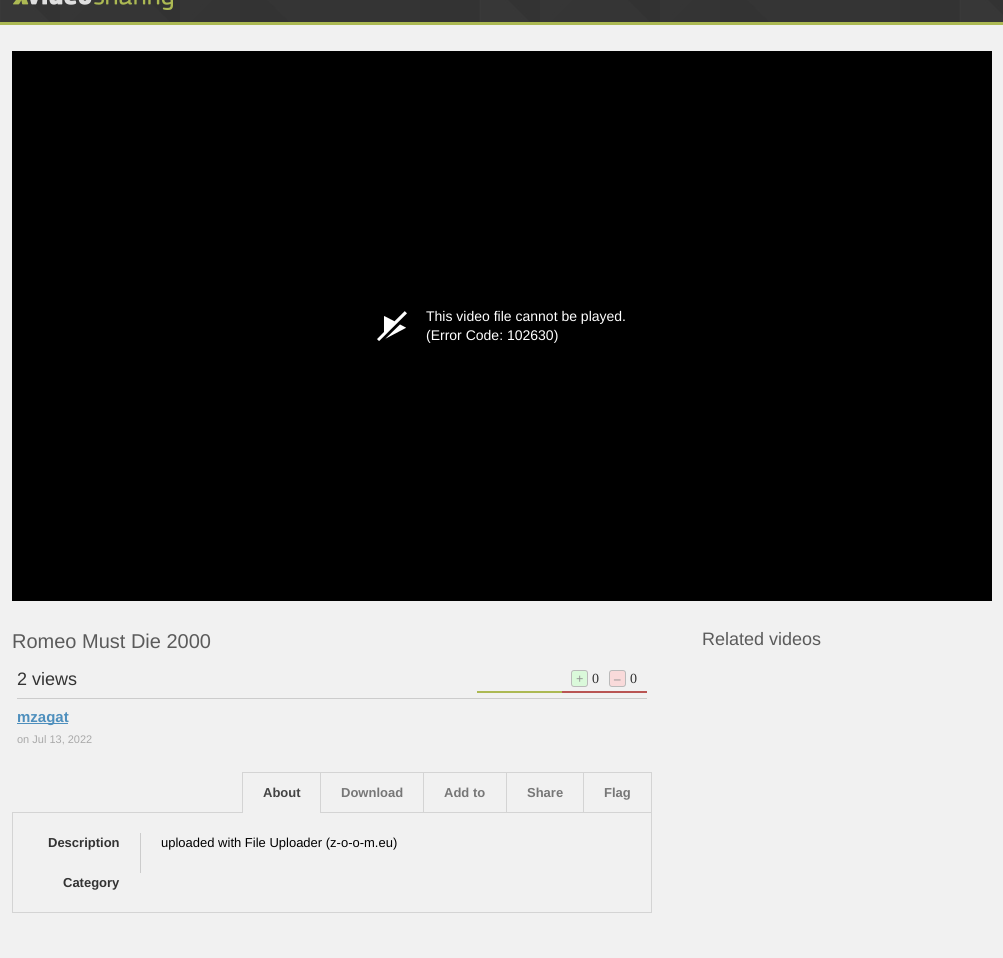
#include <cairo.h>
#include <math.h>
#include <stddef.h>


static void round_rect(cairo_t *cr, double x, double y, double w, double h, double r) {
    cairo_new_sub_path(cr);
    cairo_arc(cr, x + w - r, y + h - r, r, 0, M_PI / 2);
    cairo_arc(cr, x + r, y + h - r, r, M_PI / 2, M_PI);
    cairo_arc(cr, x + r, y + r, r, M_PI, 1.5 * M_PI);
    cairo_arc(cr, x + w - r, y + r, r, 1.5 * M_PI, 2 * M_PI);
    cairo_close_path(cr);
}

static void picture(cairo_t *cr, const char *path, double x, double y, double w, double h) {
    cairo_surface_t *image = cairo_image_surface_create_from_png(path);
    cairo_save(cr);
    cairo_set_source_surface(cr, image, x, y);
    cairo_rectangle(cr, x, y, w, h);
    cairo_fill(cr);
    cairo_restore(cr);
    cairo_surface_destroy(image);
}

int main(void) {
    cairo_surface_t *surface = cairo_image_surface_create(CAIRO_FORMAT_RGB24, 1003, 958);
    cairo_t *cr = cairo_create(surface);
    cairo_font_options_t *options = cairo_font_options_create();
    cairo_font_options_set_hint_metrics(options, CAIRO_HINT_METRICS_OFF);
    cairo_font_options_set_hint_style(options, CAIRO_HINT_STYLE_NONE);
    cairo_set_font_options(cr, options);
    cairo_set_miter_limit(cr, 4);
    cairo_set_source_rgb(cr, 0.945, 0.945, 0.945);
    cairo_paint(cr);
    picture(cr, "img1.png", 0, 0, 1003, 22);
    cairo_set_source_rgb(cr, 0.675, 0.725, 0.325);
    cairo_rectangle(cr, 0, 22, 1003, 3);
    cairo_fill(cr);
    picture(cr, "img2.png", 13, 0, 160, 10);
    cairo_set_source_rgb(cr, 0, 0, 0);
    cairo_rectangle(cr, 12, 51, 980, 550);
    cairo_fill(cr);
    picture(cr, "img3.png", 377, 311, 30, 30);
    cairo_select_font_face(cr, "Liberation Sans", CAIRO_FONT_SLANT_NORMAL, CAIRO_FONT_WEIGHT_NORMAL);
    cairo_set_font_size(cr, 14);
    cairo_set_source_rgb(cr, 1, 1, 1);
    cairo_move_to(cr, 426, 321);
    cairo_show_text(cr, "This video file cannot be played.");
    cairo_move_to(cr, 426, 340);
    cairo_show_text(cr, "(Error Code: 102630)");
    cairo_set_font_size(cr, 20);
    cairo_set_source_rgb(cr, 0.357, 0.357, 0.357);
    cairo_move_to(cr, 12, 648);
    cairo_show_text(cr, "Romeo Must Die 2000");
    cairo_set_source_rgb(cr, 0.8, 0.8, 0.8);
    cairo_rectangle(cr, 17, 698, 630, 1);
    cairo_fill(cr);
    cairo_set_font_size(cr, 18);
    cairo_set_source_rgb(cr, 0.2, 0.2, 0.2);
    cairo_move_to(cr, 17, 685);
    cairo_show_text(cr, "2 views");
    cairo_set_source_rgb(cr, 0.855, 0.973, 0.855);
    round_rect(cr, 571.5, 670.5, 16, 16, 2.5);
    cairo_fill_preserve(cr);
    cairo_set_source_rgb(cr, 0.729, 0.729, 0.729);
    cairo_set_line_width(cr, 1);
    cairo_stroke(cr);
    cairo_select_font_face(cr, "Liberation Serif", CAIRO_FONT_SLANT_NORMAL, CAIRO_FONT_WEIGHT_BOLD);
    cairo_set_font_size(cr, 13);
    cairo_set_source_rgb(cr, 0.573, 0.573, 0.573);
    cairo_move_to(cr, 576, 683);
    cairo_show_text(cr, "+");
    cairo_select_font_face(cr, "Liberation Serif", CAIRO_FONT_SLANT_NORMAL, CAIRO_FONT_WEIGHT_NORMAL);
    cairo_set_font_size(cr, 14);
    cairo_set_source_rgb(cr, 0.2, 0.2, 0.2);
    cairo_move_to(cr, 592, 683);
    cairo_show_text(cr, "0");
    cairo_set_source_rgb(cr, 0.973, 0.855, 0.855);
    round_rect(cr, 609.5, 670.5, 16, 16, 2.5);
    cairo_fill_preserve(cr);
    cairo_set_source_rgb(cr, 0.729, 0.729, 0.729);
    cairo_stroke(cr);
    cairo_select_font_face(cr, "Liberation Serif", CAIRO_FONT_SLANT_NORMAL, CAIRO_FONT_WEIGHT_BOLD);
    cairo_set_font_size(cr, 13);
    cairo_set_source_rgb(cr, 0.573, 0.573, 0.573);
    cairo_move_to(cr, 614, 683);
    cairo_show_text(cr, "–");
    cairo_select_font_face(cr, "Liberation Serif", CAIRO_FONT_SLANT_NORMAL, CAIRO_FONT_WEIGHT_NORMAL);
    cairo_set_font_size(cr, 14);
    cairo_set_source_rgb(cr, 0.2, 0.2, 0.2);
    cairo_move_to(cr, 630, 683);
    cairo_show_text(cr, "0");
    cairo_set_source_rgb(cr, 0.725, 0.333, 0.325);
    cairo_rectangle(cr, 562, 691, 85, 2);
    cairo_fill(cr);
    cairo_set_source_rgb(cr, 0.675, 0.725, 0.325);
    cairo_rectangle(cr, 477, 691, 85, 2);
    cairo_fill(cr);
    cairo_set_source_rgb(cr, 0.306, 0.561, 0.741);
    cairo_rectangle(cr, 17, 723, 51, 1);
    cairo_fill(cr);
    cairo_select_font_face(cr, "Liberation Sans", CAIRO_FONT_SLANT_NORMAL, CAIRO_FONT_WEIGHT_BOLD);
    cairo_set_font_size(cr, 15);
    cairo_move_to(cr, 17, 722);
    cairo_show_text(cr, "mzagat");
    cairo_select_font_face(cr, "Liberation Sans", CAIRO_FONT_SLANT_NORMAL, CAIRO_FONT_WEIGHT_NORMAL);
    cairo_set_font_size(cr, 11);
    cairo_set_source_rgb(cr, 0.663, 0.663, 0.663);
    cairo_move_to(cr, 17, 743);
    cairo_show_text(cr, "on Jul 13, 2022");
    cairo_set_source_rgb(cr, 0.831, 0.831, 0.831);
    cairo_rectangle(cr, 12, 812, 571, 1);
    cairo_fill(cr);
    cairo_set_source_rgb(cr, 0.945, 0.945, 0.945);
    cairo_rectangle(cr, 242, 812, 78, 1);
    cairo_fill(cr);
    cairo_set_source_rgb(cr, 0.831, 0.831, 0.831);
    cairo_rectangle(cr, 242, 772, 341, 1);
    cairo_fill(cr);
    cairo_rectangle(cr, 242, 772, 1, 41);
    cairo_fill(cr);
    cairo_select_font_face(cr, "Liberation Sans", CAIRO_FONT_SLANT_NORMAL, CAIRO_FONT_WEIGHT_BOLD);
    cairo_set_font_size(cr, 13);
    cairo_set_source_rgb(cr, 0.267, 0.267, 0.267);
    cairo_move_to(cr, 263, 797);
    cairo_show_text(cr, "About");
    cairo_set_source_rgb(cr, 0.831, 0.831, 0.831);
    cairo_rectangle(cr, 320, 772, 1, 41);
    cairo_fill(cr);
    cairo_set_source_rgb(cr, 0.467, 0.467, 0.467);
    cairo_move_to(cr, 341, 797);
    cairo_show_text(cr, "Download");
    cairo_set_source_rgb(cr, 0.831, 0.831, 0.831);
    cairo_rectangle(cr, 423, 772, 1, 41);
    cairo_fill(cr);
    cairo_set_source_rgb(cr, 0.467, 0.467, 0.467);
    cairo_move_to(cr, 444, 797);
    cairo_show_text(cr, "Add to");
    cairo_set_source_rgb(cr, 0.831, 0.831, 0.831);
    cairo_rectangle(cr, 506, 772, 1, 41);
    cairo_fill(cr);
    cairo_set_source_rgb(cr, 0.467, 0.467, 0.467);
    cairo_move_to(cr, 527, 797);
    cairo_show_text(cr, "Share");
    cairo_rectangle(cr, 583.5, 772.5, 68, 40);
    cairo_set_source_rgb(cr, 0.831, 0.831, 0.831);
    cairo_stroke(cr);
    cairo_set_source_rgb(cr, 0.467, 0.467, 0.467);
    cairo_move_to(cr, 604, 797);
    cairo_show_text(cr, "Flag");
    cairo_set_source_rgb(cr, 0.831, 0.831, 0.831);
    cairo_rectangle(cr, 651, 813, 1, 100);
    cairo_fill(cr);
    cairo_rectangle(cr, 12, 912, 640, 1);
    cairo_fill(cr);
    cairo_rectangle(cr, 12, 813, 1, 100);
    cairo_fill(cr);
    cairo_set_source_rgb(cr, 0.2, 0.2, 0.2);
    cairo_move_to(cr, 48, 847);
    cairo_show_text(cr, "Description");
    cairo_set_source_rgb(cr, 0.8, 0.8, 0.8);
    cairo_rectangle(cr, 140, 833, 1, 40);
    cairo_fill(cr);
    cairo_select_font_face(cr, "Liberation Sans", CAIRO_FONT_SLANT_NORMAL, CAIRO_FONT_WEIGHT_NORMAL);
    cairo_set_source_rgb(cr, 0, 0, 0);
    cairo_move_to(cr, 161, 847);
    cairo_show_text(cr, "uploaded with File Uploader (z-o-o-m.eu)");
    cairo_select_font_face(cr, "Liberation Sans", CAIRO_FONT_SLANT_NORMAL, CAIRO_FONT_WEIGHT_BOLD);
    cairo_set_source_rgb(cr, 0.2, 0.2, 0.2);
    cairo_move_to(cr, 63, 887);
    cairo_show_text(cr, "Category");
    cairo_select_font_face(cr, "Liberation Sans", CAIRO_FONT_SLANT_NORMAL, CAIRO_FONT_WEIGHT_NORMAL);
    cairo_set_font_size(cr, 18);
    cairo_set_source_rgb(cr, 0.357, 0.357, 0.357);
    cairo_move_to(cr, 702, 645);
    cairo_show_text(cr, "Related videos");
    cairo_surface_write_to_png(surface, "page.png");
    cairo_font_options_destroy(options);
    cairo_destroy(cr);
    cairo_surface_destroy(surface);
    return 0;
}
